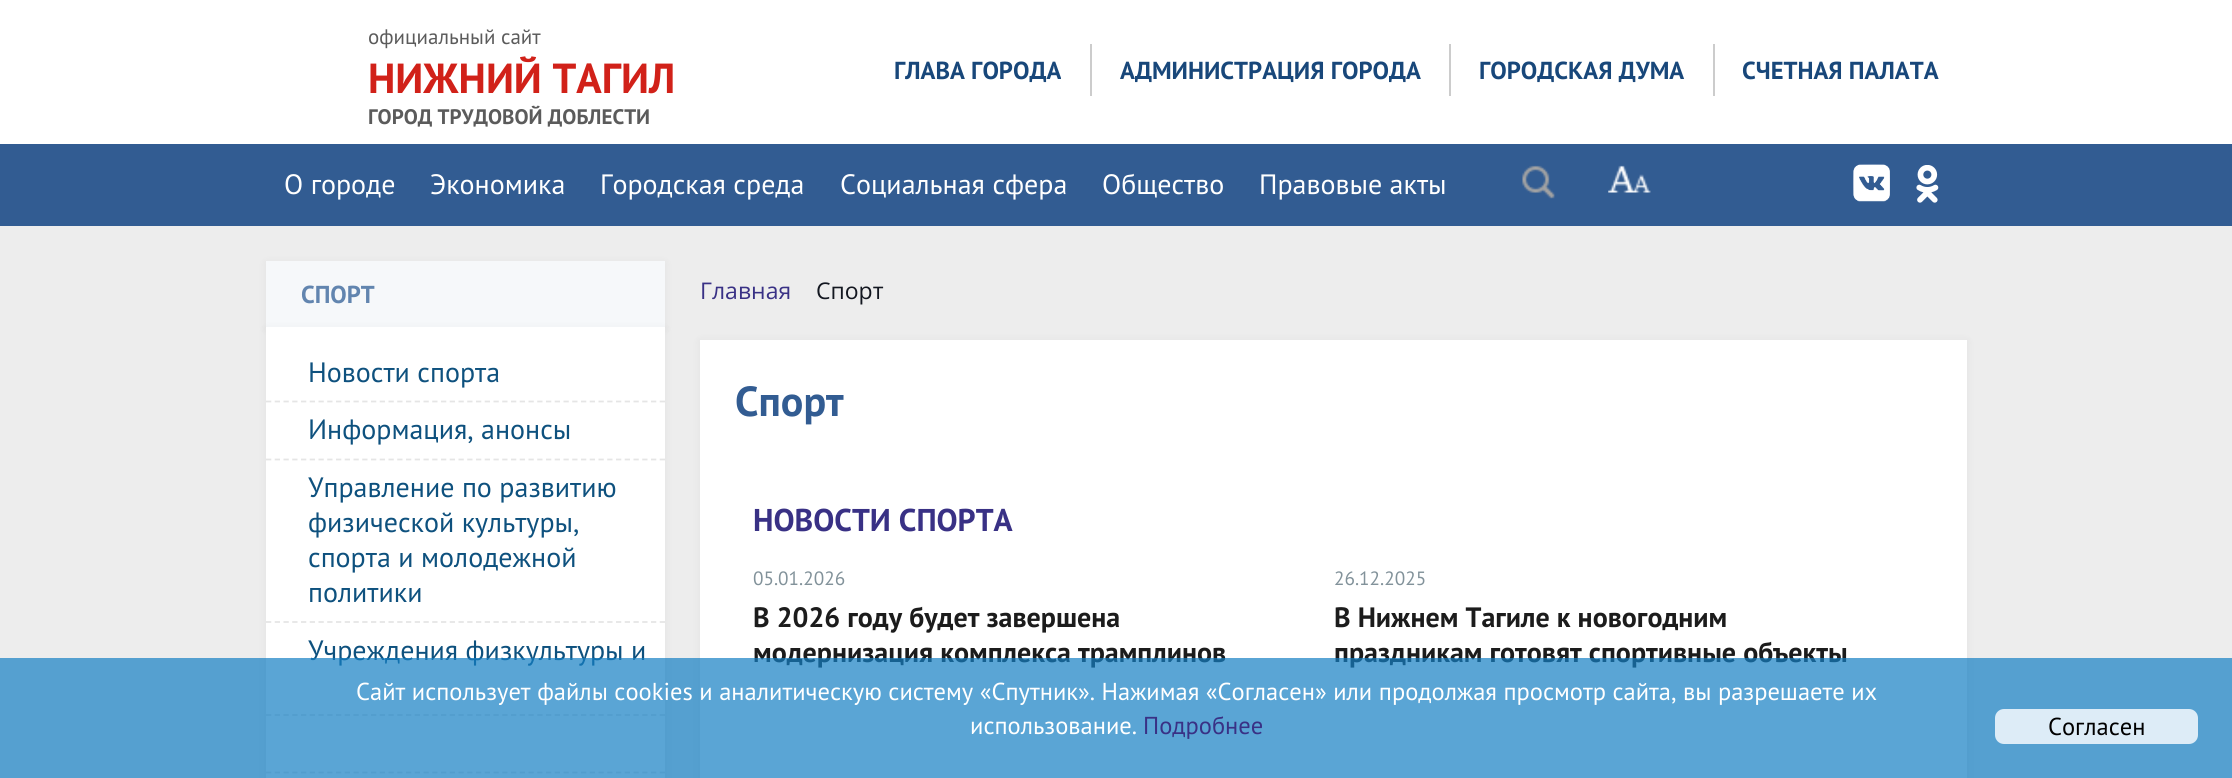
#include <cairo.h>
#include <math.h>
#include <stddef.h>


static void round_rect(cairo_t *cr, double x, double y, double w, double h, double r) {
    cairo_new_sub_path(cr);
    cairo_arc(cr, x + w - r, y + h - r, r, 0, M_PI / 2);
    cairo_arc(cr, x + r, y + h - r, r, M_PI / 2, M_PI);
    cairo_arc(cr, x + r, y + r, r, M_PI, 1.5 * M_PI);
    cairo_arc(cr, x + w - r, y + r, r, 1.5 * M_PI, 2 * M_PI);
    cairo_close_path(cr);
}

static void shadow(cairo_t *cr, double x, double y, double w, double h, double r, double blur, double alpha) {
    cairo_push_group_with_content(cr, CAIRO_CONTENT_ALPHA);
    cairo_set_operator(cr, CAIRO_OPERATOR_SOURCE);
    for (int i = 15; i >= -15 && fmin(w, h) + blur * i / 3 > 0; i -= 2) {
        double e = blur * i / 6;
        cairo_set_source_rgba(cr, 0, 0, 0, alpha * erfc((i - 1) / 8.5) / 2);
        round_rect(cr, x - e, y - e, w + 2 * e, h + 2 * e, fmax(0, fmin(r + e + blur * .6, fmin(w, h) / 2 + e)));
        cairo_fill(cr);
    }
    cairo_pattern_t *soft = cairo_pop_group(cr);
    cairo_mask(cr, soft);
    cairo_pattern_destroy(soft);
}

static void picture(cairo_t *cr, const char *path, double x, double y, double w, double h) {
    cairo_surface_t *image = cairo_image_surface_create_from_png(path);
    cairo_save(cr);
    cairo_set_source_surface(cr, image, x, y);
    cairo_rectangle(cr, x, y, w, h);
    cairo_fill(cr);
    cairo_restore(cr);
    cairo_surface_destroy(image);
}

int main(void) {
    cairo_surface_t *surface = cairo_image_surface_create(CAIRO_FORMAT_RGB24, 2232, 778);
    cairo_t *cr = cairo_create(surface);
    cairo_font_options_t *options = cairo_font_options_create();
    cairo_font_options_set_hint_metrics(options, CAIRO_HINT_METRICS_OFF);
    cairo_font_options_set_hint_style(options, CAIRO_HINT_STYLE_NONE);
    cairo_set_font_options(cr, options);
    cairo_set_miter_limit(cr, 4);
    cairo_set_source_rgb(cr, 0.929, 0.929, 0.929);
    cairo_paint(cr);
    cairo_set_source_rgb(cr, 1, 1, 1);
    cairo_rectangle(cr, 0, 0, 2232, 144);
    cairo_fill(cr);
    cairo_select_font_face(cr, "PT Sans", CAIRO_FONT_SLANT_NORMAL, CAIRO_FONT_WEIGHT_NORMAL);
    cairo_set_font_size(cr, 21);
    cairo_set_source_rgb(cr, 0.357, 0.357, 0.357);
    cairo_move_to(cr, 368, 44);
    cairo_show_text(cr, "официальный сайт");
    cairo_select_font_face(cr, "PT Sans", CAIRO_FONT_SLANT_NORMAL, CAIRO_FONT_WEIGHT_BOLD);
    cairo_set_font_size(cr, 42);
    cairo_set_source_rgb(cr, 0.82, 0.129, 0.098);
    cairo_move_to(cr, 368, 93);
    cairo_show_text(cr, "НИЖНИЙ ТАГИЛ");
    cairo_set_font_size(cr, 21);
    cairo_set_source_rgb(cr, 0.357, 0.357, 0.357);
    cairo_move_to(cr, 368, 124);
    cairo_show_text(cr, "ГОРОД ТРУДОВОЙ ДОБЛЕСТИ");
    cairo_set_source_rgb(cr, 0.8, 0.8, 0.8);
    cairo_rectangle(cr, 1090, 44, 2, 52);
    cairo_fill(cr);
    cairo_set_font_size(cr, 24.6);
    cairo_set_source_rgb(cr, 0.094, 0.278, 0.478);
    cairo_move_to(cr, 894, 79);
    cairo_show_text(cr, "ГЛАВА ГОРОДА");
    cairo_set_source_rgb(cr, 0.8, 0.8, 0.8);
    cairo_rectangle(cr, 1449, 44, 2, 52);
    cairo_fill(cr);
    cairo_set_source_rgb(cr, 0.094, 0.278, 0.478);
    cairo_move_to(cr, 1120, 79);
    cairo_show_text(cr, "АДМИНИСТРАЦИЯ ГОРОДА");
    cairo_set_source_rgb(cr, 0.8, 0.8, 0.8);
    cairo_rectangle(cr, 1713, 44, 2, 52);
    cairo_fill(cr);
    cairo_set_source_rgb(cr, 0.094, 0.278, 0.478);
    cairo_move_to(cr, 1479, 79);
    cairo_show_text(cr, "ГОРОДСКАЯ ДУМА");
    cairo_move_to(cr, 1742, 79);
    cairo_show_text(cr, "СЧЕТНАЯ ПАЛАТА");
    cairo_set_source_rgb(cr, 0.196, 0.361, 0.573);
    cairo_rectangle(cr, 0, 144, 2232, 82);
    cairo_fill(cr);
    cairo_select_font_face(cr, "PT Sans", CAIRO_FONT_SLANT_NORMAL, CAIRO_FONT_WEIGHT_NORMAL);
    cairo_set_font_size(cr, 28);
    cairo_set_source_rgb(cr, 1, 1, 1);
    cairo_move_to(cr, 284, 194);
    cairo_show_text(cr, "О городе");
    cairo_move_to(cr, 430, 194);
    cairo_show_text(cr, "Экономика");
    cairo_move_to(cr, 600, 194);
    cairo_show_text(cr, "Городская среда");
    cairo_move_to(cr, 840, 194);
    cairo_show_text(cr, "Социальная сфера");
    cairo_move_to(cr, 1102, 194);
    cairo_show_text(cr, "Общество");
    cairo_move_to(cr, 1259, 194);
    cairo_show_text(cr, "Правовые акты");
    picture(cr, "img1.png", 1522, 165, 33, 34);
    picture(cr, "img2.png", 1608, 165, 43, 28);
    picture(cr, "img3.png", 1853, 164, 37, 38);
    picture(cr, "img4.png", 1916, 165, 23, 38);
    cairo_set_source_rgb(cr, 0, 0, 0);
    shadow(cr, 266, 263, 399, 66, 0, 4.5, 0.05);
    cairo_set_source_rgb(cr, 0.961, 0.969, 0.98);
    cairo_rectangle(cr, 266, 261, 399, 66);
    cairo_fill(cr);
    cairo_select_font_face(cr, "PT Sans", CAIRO_FONT_SLANT_NORMAL, CAIRO_FONT_WEIGHT_BOLD);
    cairo_set_font_size(cr, 24.5);
    cairo_set_source_rgb(cr, 0.384, 0.522, 0.686);
    cairo_move_to(cr, 301, 303);
    cairo_show_text(cr, "СПОРТ");
    cairo_set_source_rgb(cr, 0, 0, 0);
    shadow(cr, 266, 329, 399, 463, 0, 4.5, 0.05);
    cairo_set_source_rgb(cr, 1, 1, 1);
    cairo_rectangle(cr, 266, 327, 399, 451);
    cairo_fill(cr);
    cairo_new_path(cr);
    cairo_move_to(cr, 266, 401.5);
    cairo_line_to(cr, 665, 401.5);
    cairo_set_source_rgb(cr, 0.898, 0.898, 0.898);
    cairo_set_line_width(cr, 1.8);
    cairo_set_dash(cr, (double[]){5.25, 3.5}, 2, 0);
    cairo_stroke(cr);
    cairo_select_font_face(cr, "PT Sans", CAIRO_FONT_SLANT_NORMAL, CAIRO_FONT_WEIGHT_NORMAL);
    cairo_set_font_size(cr, 28);
    cairo_set_source_rgb(cr, 0.055, 0.318, 0.494);
    cairo_move_to(cr, 308, 382);
    cairo_show_text(cr, "Новости спорта");
    cairo_new_path(cr);
    cairo_move_to(cr, 266, 459.5);
    cairo_line_to(cr, 665, 459.5);
    cairo_set_source_rgb(cr, 0.898, 0.898, 0.898);
    cairo_stroke(cr);
    cairo_set_source_rgb(cr, 0.055, 0.318, 0.494);
    cairo_move_to(cr, 308, 439);
    cairo_show_text(cr, "Информация, анонсы");
    cairo_new_path(cr);
    cairo_move_to(cr, 266, 622);
    cairo_line_to(cr, 665, 622);
    cairo_set_source_rgb(cr, 0.898, 0.898, 0.898);
    cairo_stroke(cr);
    cairo_set_source_rgb(cr, 0.055, 0.318, 0.494);
    cairo_move_to(cr, 308, 497);
    cairo_show_text(cr, "Управление по развитию");
    cairo_move_to(cr, 308, 532);
    cairo_show_text(cr, "физической культуры,");
    cairo_move_to(cr, 308, 567);
    cairo_show_text(cr, "спорта и молодежной");
    cairo_move_to(cr, 308, 602);
    cairo_show_text(cr, "политики");
    cairo_new_path(cr);
    cairo_move_to(cr, 266, 715);
    cairo_line_to(cr, 665, 715);
    cairo_set_source_rgb(cr, 0.898, 0.898, 0.898);
    cairo_stroke(cr);
    cairo_set_source_rgb(cr, 0.055, 0.318, 0.494);
    cairo_move_to(cr, 308, 660);
    cairo_show_text(cr, "Учреждения физкультуры и");
    cairo_new_path(cr);
    cairo_move_to(cr, 266, 772.5);
    cairo_line_to(cr, 665, 772.5);
    cairo_set_source_rgb(cr, 0.898, 0.898, 0.898);
    cairo_stroke(cr);
    cairo_select_font_face(cr, "Open Sans", CAIRO_FONT_SLANT_NORMAL, CAIRO_FONT_WEIGHT_NORMAL);
    cairo_set_font_size(cr, 23);
    cairo_set_source_rgb(cr, 0.224, 0.192, 0.522);
    cairo_move_to(cr, 700, 299);
    cairo_show_text(cr, "Главная");
    cairo_set_source_rgb(cr, 0.075, 0.09, 0.125);
    cairo_move_to(cr, 816, 299);
    cairo_show_text(cr, "Спорт");
    cairo_set_source_rgb(cr, 0, 0, 0);
    shadow(cr, 700, 341, 1267, 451, 0, 4.5, 0.05);
    cairo_set_source_rgb(cr, 1, 1, 1);
    cairo_rectangle(cr, 700, 340, 1267, 438);
    cairo_fill(cr);
    cairo_select_font_face(cr, "PT Sans", CAIRO_FONT_SLANT_NORMAL, CAIRO_FONT_WEIGHT_BOLD);
    cairo_set_font_size(cr, 42);
    cairo_set_source_rgb(cr, 0.196, 0.361, 0.573);
    cairo_move_to(cr, 735, 416);
    cairo_show_text(cr, "Спорт");
    cairo_set_font_size(cr, 31.5);
    cairo_set_source_rgb(cr, 0.224, 0.192, 0.522);
    cairo_move_to(cr, 753, 531);
    cairo_show_text(cr, "НОВОСТИ СПОРТА");
    cairo_select_font_face(cr, "PT Sans", CAIRO_FONT_SLANT_NORMAL, CAIRO_FONT_WEIGHT_NORMAL);
    cairo_set_font_size(cr, 19.25);
    cairo_set_source_rgb(cr, 0.51, 0.573, 0.604);
    cairo_move_to(cr, 753, 585);
    cairo_show_text(cr, "05.01.2026");
    cairo_select_font_face(cr, "PT Sans", CAIRO_FONT_SLANT_NORMAL, CAIRO_FONT_WEIGHT_BOLD);
    cairo_set_font_size(cr, 28);
    cairo_set_source_rgb(cr, 0.11, 0.11, 0.11);
    cairo_move_to(cr, 753, 627);
    cairo_show_text(cr, "В 2026 году будет завершена");
    cairo_move_to(cr, 753, 662);
    cairo_show_text(cr, "модернизация комплекса трамплинов");
    cairo_select_font_face(cr, "PT Sans", CAIRO_FONT_SLANT_NORMAL, CAIRO_FONT_WEIGHT_NORMAL);
    cairo_set_font_size(cr, 19.25);
    cairo_set_source_rgb(cr, 0.51, 0.573, 0.604);
    cairo_move_to(cr, 1334, 585);
    cairo_show_text(cr, "26.12.2025");
    cairo_select_font_face(cr, "PT Sans", CAIRO_FONT_SLANT_NORMAL, CAIRO_FONT_WEIGHT_BOLD);
    cairo_set_font_size(cr, 28);
    cairo_set_source_rgb(cr, 0.11, 0.11, 0.11);
    cairo_move_to(cr, 1334, 627);
    cairo_show_text(cr, "В Нижнем Тагиле к новогодним");
    cairo_move_to(cr, 1334, 662);
    cairo_show_text(cr, "праздникам готовят спортивные объекты");
    cairo_set_source_rgba(cr, 0.082, 0.498, 0.769, 0.7);
    cairo_rectangle(cr, 0, 658, 2232, 120);
    cairo_fill(cr);
    cairo_select_font_face(cr, "PT Sans", CAIRO_FONT_SLANT_NORMAL, CAIRO_FONT_WEIGHT_NORMAL);
    cairo_set_font_size(cr, 24.5);
    cairo_set_source_rgb(cr, 1, 1, 1);
    cairo_move_to(cr, 356, 700);
    cairo_show_text(cr, "Сайт использует файлы cookies и аналитическую систему «Спутник». Нажимая «Согласен» или продолжая просмотр сайта, вы разрешаете их");
    cairo_move_to(cr, 970, 734);
    cairo_show_text(cr, "использование.");
    cairo_set_source_rgb(cr, 0.224, 0.192, 0.522);
    cairo_move_to(cr, 1143, 734);
    cairo_show_text(cr, "Подробнее");
    cairo_set_source_rgb(cr, 0.867, 0.925, 0.965);
    round_rect(cr, 1995, 709, 203, 35, 9);
    cairo_fill(cr);
    cairo_set_source_rgb(cr, 0, 0, 0);
    cairo_move_to(cr, 2048, 735);
    cairo_show_text(cr, "Согласен");
    cairo_surface_write_to_png(surface, "page.png");
    cairo_font_options_destroy(options);
    cairo_destroy(cr);
    cairo_surface_destroy(surface);
    return 0;
}
